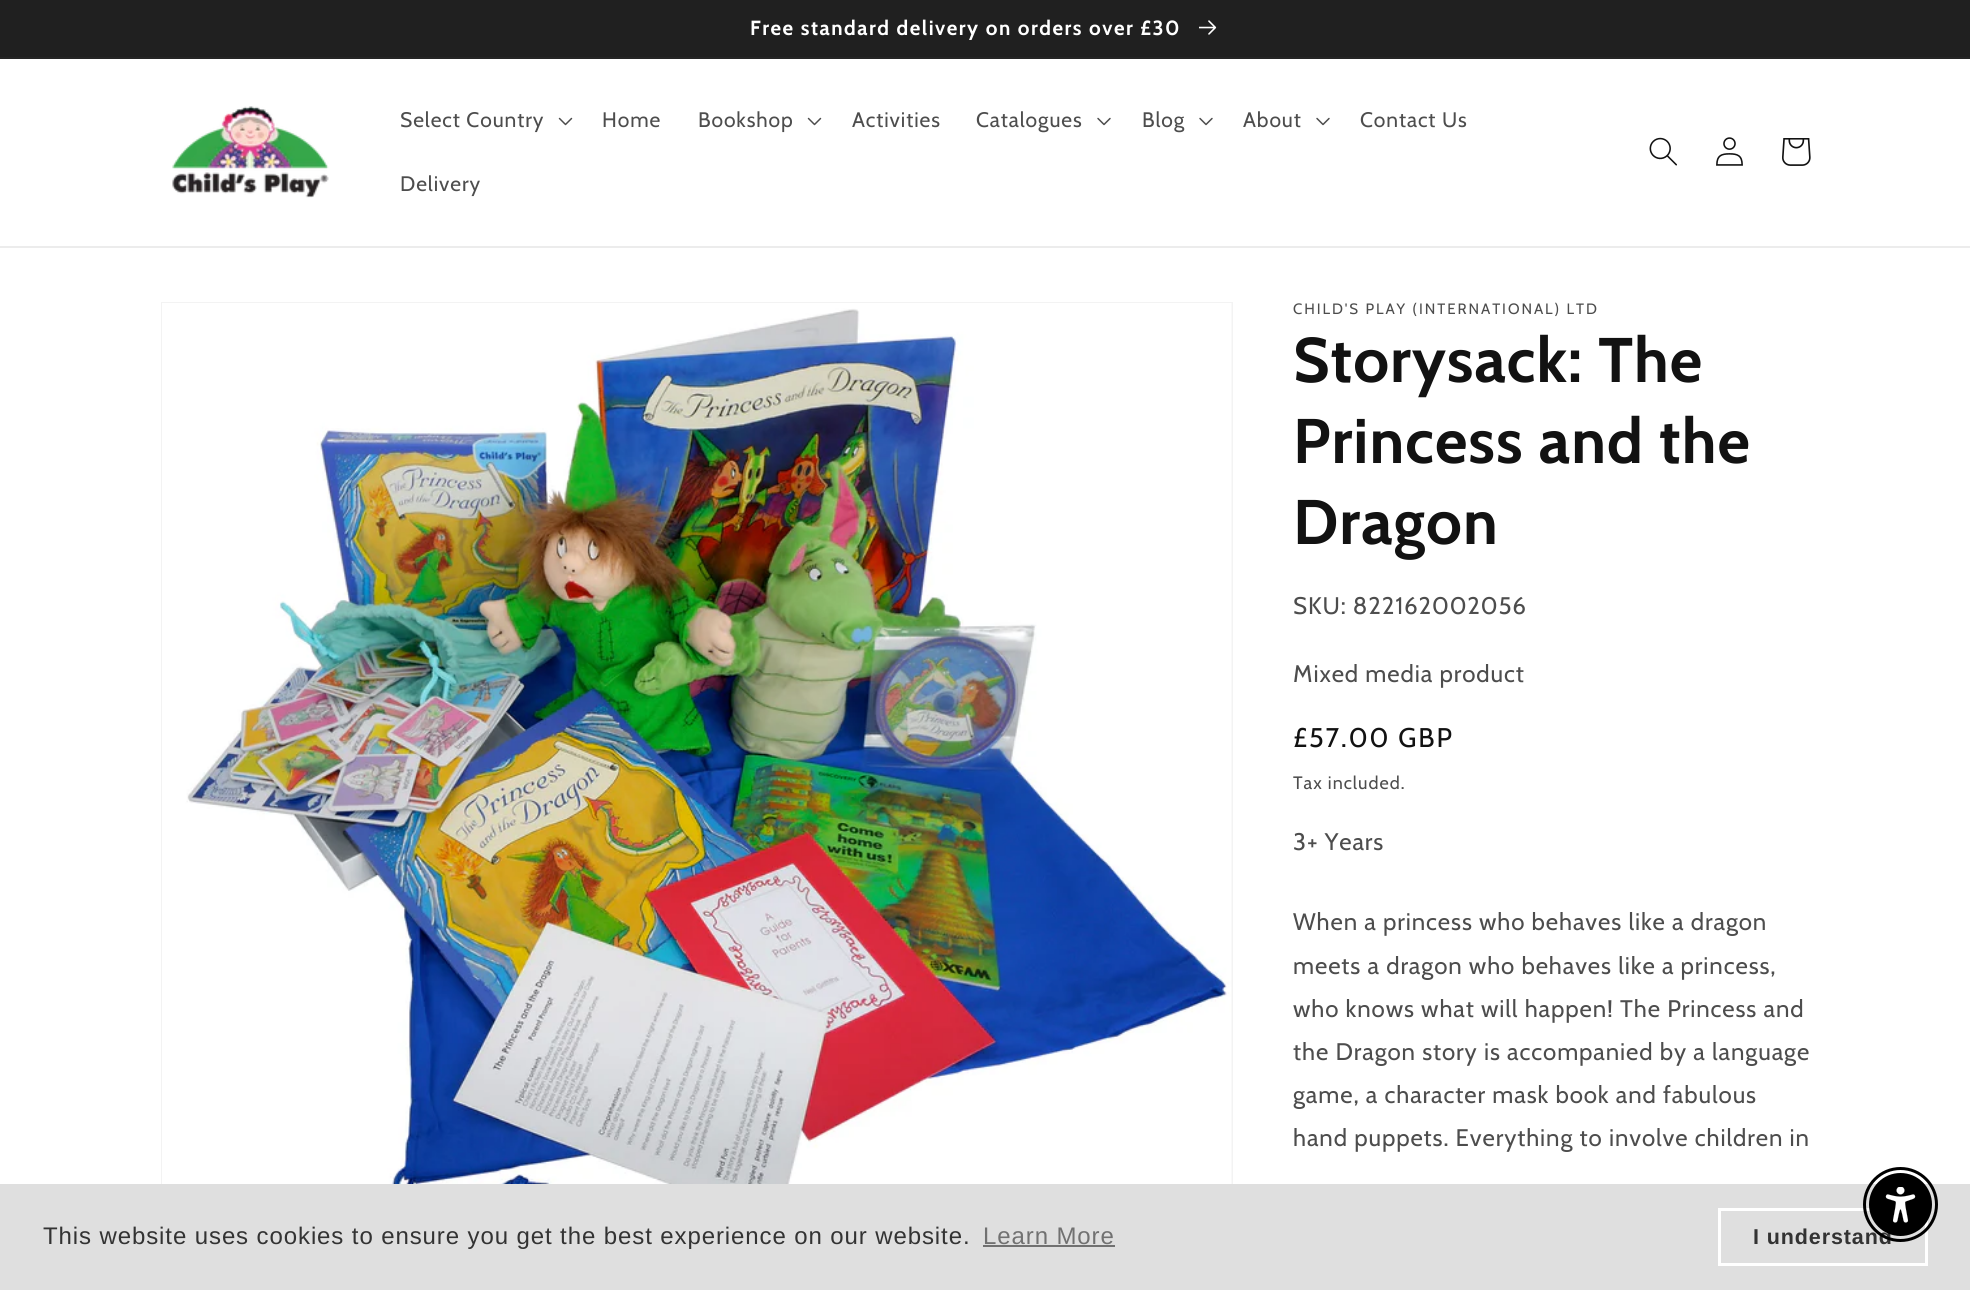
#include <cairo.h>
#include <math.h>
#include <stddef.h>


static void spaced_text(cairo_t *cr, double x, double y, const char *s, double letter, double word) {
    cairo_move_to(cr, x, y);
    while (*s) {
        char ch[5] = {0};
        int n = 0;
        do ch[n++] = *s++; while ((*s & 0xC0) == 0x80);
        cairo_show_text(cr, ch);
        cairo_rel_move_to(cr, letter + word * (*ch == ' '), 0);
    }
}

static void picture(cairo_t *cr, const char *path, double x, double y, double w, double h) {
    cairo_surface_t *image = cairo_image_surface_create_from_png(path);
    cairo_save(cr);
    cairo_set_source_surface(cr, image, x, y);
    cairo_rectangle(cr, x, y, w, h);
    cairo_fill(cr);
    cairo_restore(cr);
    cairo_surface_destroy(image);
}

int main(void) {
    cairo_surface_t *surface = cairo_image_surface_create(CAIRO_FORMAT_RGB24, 1970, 1290);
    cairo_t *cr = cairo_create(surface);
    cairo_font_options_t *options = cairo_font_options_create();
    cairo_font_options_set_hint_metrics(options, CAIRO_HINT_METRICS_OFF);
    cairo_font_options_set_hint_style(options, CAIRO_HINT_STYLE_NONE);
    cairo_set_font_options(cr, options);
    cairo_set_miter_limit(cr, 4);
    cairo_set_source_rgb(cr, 1, 1, 1);
    cairo_paint(cr);
    cairo_set_source_rgb(cr, 0.145, 0.145, 0.145);
    cairo_rectangle(cr, 0, 57, 1970, 2);
    cairo_fill(cr);
    cairo_set_source_rgb(cr, 0.125, 0.125, 0.125);
    cairo_rectangle(cr, 0, 0, 1970, 57);
    cairo_fill(cr);
    cairo_select_font_face(cr, "Cabin", CAIRO_FONT_SLANT_NORMAL, CAIRO_FONT_WEIGHT_BOLD);
    cairo_set_font_size(cr, 20.5);
    cairo_set_source_rgb(cr, 1, 1, 1);
    spaced_text(cr, 750, 35, "Free standard delivery on orders over £30", 1.5, 0);
    picture(cr, "img1.png", 1199, 20, 18, 15);
    cairo_set_source_rgb(cr, 0.925, 0.925, 0.925);
    cairo_rectangle(cr, 0, 246, 1970, 2);
    cairo_fill(cr);
    picture(cr, "img2.png", 172, 106, 157, 92);
    cairo_select_font_face(cr, "Cabin", CAIRO_FONT_SLANT_NORMAL, CAIRO_FONT_WEIGHT_NORMAL);
    cairo_set_font_size(cr, 21);
    cairo_set_source_rgb(cr, 0.302, 0.302, 0.302);
    spaced_text(cr, 400, 127, "Select Country", 0.9, 0);
    picture(cr, "img3.png", 558, 117, 15, 9);
    spaced_text(cr, 602, 127, "Home", 0.9, 0);
    spaced_text(cr, 698, 127, "Bookshop", 0.9, 0);
    picture(cr, "img3.png", 807, 117, 15, 9);
    spaced_text(cr, 852, 127, "Activities", 0.9, 0);
    spaced_text(cr, 976, 127, "Catalogues", 0.9, 0);
    picture(cr, "img4.png", 1097, 117, 14, 9);
    spaced_text(cr, 1142, 127, "Blog", 0.9, 0);
    picture(cr, "img4.png", 1199, 117, 14, 9);
    spaced_text(cr, 1243, 127, "About", 0.9, 0);
    picture(cr, "img4.png", 1316, 117, 14, 9);
    spaced_text(cr, 1360, 127, "Contact Us", 0.9, 0);
    spaced_text(cr, 400, 191, "Delivery", 0.9, 0);
    picture(cr, "img5.png", 1649, 137, 28, 29);
    picture(cr, "img6.png", 1716, 137, 27, 29);
    picture(cr, "img7.png", 1782, 138, 29, 28);
    cairo_rectangle(cr, 162, 303, 1070, 925);
    cairo_set_source_rgb(cr, 0.953, 0.953, 0.953);
    cairo_stroke(cr);
    picture(cr, "img8.png", 162, 303, 1070, 881);
    cairo_set_font_size(cr, 15);
    cairo_set_source_rgb(cr, 0.302, 0.302, 0.302);
    spaced_text(cr, 1293, 314, "CHILD'S PLAY (INTERNATIONAL) LTD", 1.95, 0);
    cairo_select_font_face(cr, "Cabin", CAIRO_FONT_SLANT_NORMAL, CAIRO_FONT_WEIGHT_BOLD);
    cairo_set_font_size(cr, 63);
    cairo_set_source_rgb(cr, 0.071, 0.071, 0.071);
    spaced_text(cr, 1293, 382, "Storysack: The", 1, 0);
    spaced_text(cr, 1293, 463, "Princess and the", 1, 0);
    spaced_text(cr, 1293, 544, "Dragon", 1, 0);
    cairo_select_font_face(cr, "Cabin", CAIRO_FONT_SLANT_NORMAL, CAIRO_FONT_WEIGHT_NORMAL);
    cairo_set_font_size(cr, 24);
    cairo_set_source_rgb(cr, 0.302, 0.302, 0.302);
    spaced_text(cr, 1293, 614, "SKU: 822162002056", 0.9, 0);
    spaced_text(cr, 1293, 682, "Mixed media product", 0.9, 0);
    cairo_set_font_size(cr, 27);
    cairo_set_source_rgb(cr, 0.071, 0.071, 0.071);
    spaced_text(cr, 1293, 747, "£57.00 GBP", 1.95, 0);
    cairo_set_font_size(cr, 18);
    cairo_set_source_rgb(cr, 0.302, 0.302, 0.302);
    spaced_text(cr, 1293, 789, "Tax included.", 1, 0);
    cairo_set_font_size(cr, 24);
    spaced_text(cr, 1293, 850, "3+ Years", 0.9, 0);
    spaced_text(cr, 1293, 930, "When a princess who behaves like a dragon", 0.9, 0);
    spaced_text(cr, 1293, 974, "meets a dragon who behaves like a princess,", 0.9, 0);
    spaced_text(cr, 1293, 1017, "who knows what will happen! The Princess and", 0.9, 0);
    spaced_text(cr, 1293, 1060, "the Dragon story is accompanied by a language", 0.9, 0);
    spaced_text(cr, 1293, 1103, "game, a character mask book and fabulous", 0.9, 0);
    spaced_text(cr, 1293, 1146, "hand puppets. Everything to involve children in", 0.9, 0);
    cairo_set_source_rgb(cr, 0.875, 0.875, 0.875);
    cairo_rectangle(cr, 0, 1184, 1970, 106);
    cairo_fill(cr);
    cairo_select_font_face(cr, "Liberation Sans", CAIRO_FONT_SLANT_NORMAL, CAIRO_FONT_WEIGHT_NORMAL);
    cairo_set_source_rgb(cr, 0.2, 0.2, 0.2);
    spaced_text(cr, 43, 1244, "This website uses cookies to ensure you get the best experience on our website.", 0.9, 0);
    cairo_set_source_rgb(cr, 0.443, 0.443, 0.443);
    spaced_text(cr, 983, 1244, "Learn More", 0.9, 0);
    cairo_rectangle(cr, 983, 1245, 132, 2);
    cairo_fill(cr);
    cairo_rectangle(cr, 1719.5, 1209.5, 207, 55);
    cairo_set_source_rgb(cr, 1, 1, 1);
    cairo_set_line_width(cr, 3);
    cairo_stroke(cr);
    cairo_select_font_face(cr, "Liberation Sans", CAIRO_FONT_SLANT_NORMAL, CAIRO_FONT_WEIGHT_BOLD);
    cairo_set_font_size(cr, 21.5);
    cairo_set_source_rgb(cr, 0.2, 0.2, 0.2);
    spaced_text(cr, 1753, 1244, "I understand", 0.9, 0);
    cairo_new_path(cr);
    cairo_arc(cr, 1900.5, 1204.5, 36, 0, 2 * M_PI);
    cairo_set_source_rgb(cr, 0, 0, 0);
    cairo_stroke(cr);
    cairo_arc(cr, 1900.5, 1204.5, 30.5, 0, 2 * M_PI);
    cairo_fill_preserve(cr);
    cairo_set_line_width(cr, 2);
    cairo_stroke(cr);
    picture(cr, "img9.png", 1885, 1187, 31, 36);
    cairo_surface_write_to_png(surface, "page.png");
    cairo_font_options_destroy(options);
    cairo_destroy(cr);
    cairo_surface_destroy(surface);
    return 0;
}
